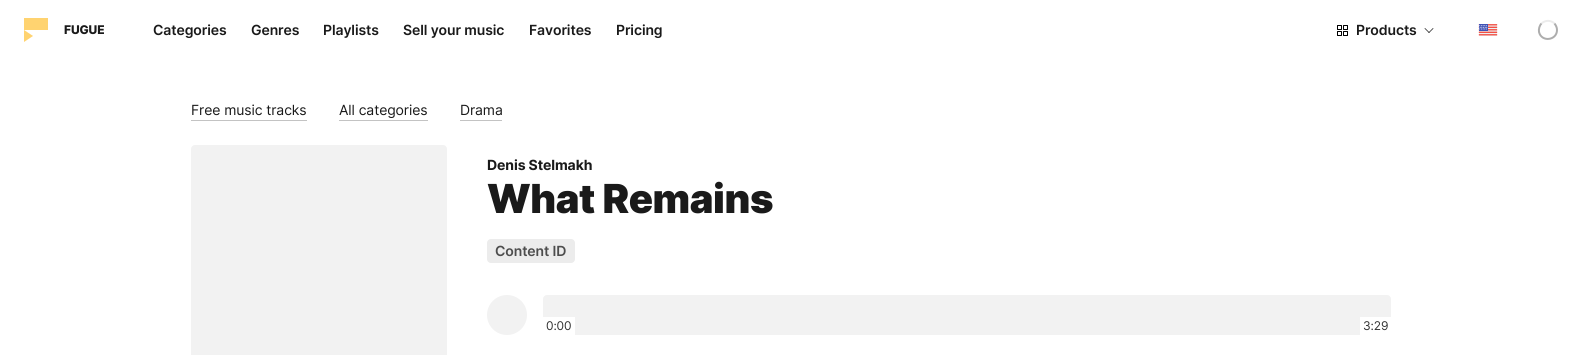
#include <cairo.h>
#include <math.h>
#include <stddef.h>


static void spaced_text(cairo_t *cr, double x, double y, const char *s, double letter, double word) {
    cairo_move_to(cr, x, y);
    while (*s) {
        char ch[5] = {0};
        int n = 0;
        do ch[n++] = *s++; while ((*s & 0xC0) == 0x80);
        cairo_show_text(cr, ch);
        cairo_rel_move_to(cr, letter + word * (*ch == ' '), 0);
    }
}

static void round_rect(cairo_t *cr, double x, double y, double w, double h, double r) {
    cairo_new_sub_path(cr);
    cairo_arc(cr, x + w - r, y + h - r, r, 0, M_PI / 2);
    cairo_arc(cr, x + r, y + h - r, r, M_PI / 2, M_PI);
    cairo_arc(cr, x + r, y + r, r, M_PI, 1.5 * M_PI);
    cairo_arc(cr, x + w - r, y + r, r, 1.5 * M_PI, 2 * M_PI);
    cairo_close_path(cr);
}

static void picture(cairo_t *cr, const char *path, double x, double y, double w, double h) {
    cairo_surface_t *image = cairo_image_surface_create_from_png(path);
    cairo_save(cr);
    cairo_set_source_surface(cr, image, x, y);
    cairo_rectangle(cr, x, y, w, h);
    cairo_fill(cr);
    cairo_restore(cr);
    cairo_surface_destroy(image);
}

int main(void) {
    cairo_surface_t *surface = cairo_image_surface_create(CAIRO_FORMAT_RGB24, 1582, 355);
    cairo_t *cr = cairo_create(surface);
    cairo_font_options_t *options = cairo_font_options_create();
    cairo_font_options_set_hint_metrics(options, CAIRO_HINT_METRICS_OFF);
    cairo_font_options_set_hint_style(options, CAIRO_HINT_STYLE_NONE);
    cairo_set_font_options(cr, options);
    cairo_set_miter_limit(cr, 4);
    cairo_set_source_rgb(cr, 1, 1, 1);
    cairo_paint(cr);
    cairo_set_source_rgb(cr, 1, 0.827, 0.439);
    cairo_new_path(cr);
    cairo_move_to(cr, 48, 30);
    cairo_line_to(cr, 48, 18);
    cairo_line_to(cr, 24, 18);
    cairo_line_to(cr, 24, 42);
    cairo_line_to(cr, 33, 36);
    cairo_line_to(cr, 24, 30);
    cairo_close_path(cr);
    cairo_fill(cr);
    cairo_select_font_face(cr, "Inter ExtraBold", CAIRO_FONT_SLANT_NORMAL, CAIRO_FONT_WEIGHT_NORMAL);
    cairo_set_font_size(cr, 12);
    cairo_set_source_rgb(cr, 0.102, 0.102, 0.102);
    spaced_text(cr, 64, 34, "FUGUE", -0.1, 0);
    cairo_select_font_face(cr, "Inter SemiBold", CAIRO_FONT_SLANT_NORMAL, CAIRO_FONT_WEIGHT_NORMAL);
    cairo_set_font_size(cr, 14);
    spaced_text(cr, 153, 35, "Categories", -0.1, 0);
    spaced_text(cr, 251, 35, "Genres", -0.1, 0);
    spaced_text(cr, 323, 35, "Playlists", -0.1, 0);
    spaced_text(cr, 403, 35, "Sell your music", -0.1, 0);
    spaced_text(cr, 529, 35, "Favorites", -0.1, 0);
    spaced_text(cr, 616, 35, "Pricing", -0.1, 0);
    picture(cr, "img1.png", 1337, 25, 11, 11);
    spaced_text(cr, 1356, 35, "Products", -0.1, 0);
    cairo_new_path(cr);
    cairo_move_to(cr, 1425, 28);
    cairo_line_to(cr, 1429.5, 32.5);
    cairo_line_to(cr, 1429, 33);
    cairo_line_to(cr, 1424.5, 28.5);
    cairo_close_path(cr);
    cairo_fill(cr);
    cairo_new_path(cr);
    cairo_move_to(cr, 1428.5, 32.5);
    cairo_line_to(cr, 1433, 28);
    cairo_line_to(cr, 1433.5, 28.5);
    cairo_line_to(cr, 1429, 33);
    cairo_close_path(cr);
    cairo_fill(cr);
    picture(cr, "img2.png", 1478, 24, 20, 12);
    cairo_new_path(cr);
    cairo_move_to(cr, 1541.5, 23.5);
    cairo_curve_to(cr, 1545, 20, 1551, 20, 1554.5, 23.5);
    cairo_set_source_rgb(cr, 0.922, 0.922, 0.922);
    cairo_stroke(cr);
    cairo_new_path(cr);
    cairo_move_to(cr, 1554.5, 23.5);
    cairo_curve_to(cr, 1556, 25.5, 1557, 27.5, 1557, 30);
    cairo_curve_to(cr, 1557, 40.5, 1541.5, 42.5, 1539, 32);
    cairo_curve_to(cr, 1538.5, 29, 1539.5, 25.5, 1541.5, 23.5);
    cairo_set_source_rgba(cr, 0.6, 0.6, 0.6, 0.8);
    cairo_stroke(cr);
    cairo_set_source_rgb(cr, 0.765, 0.765, 0.765);
    cairo_rectangle(cr, 191, 120, 116, 1);
    cairo_fill(cr);
    cairo_select_font_face(cr, "Inter", CAIRO_FONT_SLANT_NORMAL, CAIRO_FONT_WEIGHT_NORMAL);
    cairo_set_source_rgb(cr, 0.102, 0.102, 0.102);
    spaced_text(cr, 191, 115, "Free music tracks", -0.1, 0);
    cairo_set_source_rgb(cr, 0.765, 0.765, 0.765);
    cairo_rectangle(cr, 339, 120, 89, 1);
    cairo_fill(cr);
    cairo_set_source_rgb(cr, 0.102, 0.102, 0.102);
    spaced_text(cr, 339, 115, "All categories", -0.1, 0);
    cairo_set_source_rgb(cr, 0.765, 0.765, 0.765);
    cairo_rectangle(cr, 460, 120, 42, 1);
    cairo_fill(cr);
    cairo_set_source_rgb(cr, 0.102, 0.102, 0.102);
    spaced_text(cr, 460, 115, "Drama", -0.1, 0);
    cairo_set_source_rgb(cr, 0.949, 0.949, 0.949);
    round_rect(cr, 191, 145, 256, 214, 4);
    cairo_fill(cr);
    cairo_select_font_face(cr, "Inter", CAIRO_FONT_SLANT_NORMAL, CAIRO_FONT_WEIGHT_BOLD);
    cairo_set_source_rgb(cr, 0.102, 0.102, 0.102);
    spaced_text(cr, 487, 170, "Denis Stelmakh", -0.1, 0);
    cairo_select_font_face(cr, "Inter Black", CAIRO_FONT_SLANT_NORMAL, CAIRO_FONT_WEIGHT_NORMAL);
    cairo_set_font_size(cr, 40);
    spaced_text(cr, 487, 213, "What Remains", -0.4, 0);
    cairo_set_source_rgb(cr, 0.922, 0.922, 0.922);
    round_rect(cr, 487, 239, 88, 24, 4);
    cairo_fill(cr);
    cairo_select_font_face(cr, "Inter SemiBold", CAIRO_FONT_SLANT_NORMAL, CAIRO_FONT_WEIGHT_NORMAL);
    cairo_set_font_size(cr, 14);
    cairo_set_source_rgb(cr, 0.302, 0.302, 0.302);
    spaced_text(cr, 495, 256, "Content ID", -0.1, 0);
    cairo_set_source_rgb(cr, 0.949, 0.949, 0.949);
    cairo_new_path(cr);
    cairo_arc(cr, 507, 315, 20, 0, 2 * M_PI);
    cairo_fill(cr);
    round_rect(cr, 543, 295, 848, 40, 4);
    cairo_fill(cr);
    cairo_set_source_rgb(cr, 1, 1, 1);
    cairo_rectangle(cr, 543, 317, 32, 18);
    cairo_fill(cr);
    cairo_select_font_face(cr, "Inter", CAIRO_FONT_SLANT_NORMAL, CAIRO_FONT_WEIGHT_NORMAL);
    cairo_set_font_size(cr, 12);
    cairo_set_source_rgb(cr, 0.2, 0.2, 0.2);
    spaced_text(cr, 546, 330, "0:00", -0.1, 0);
    cairo_set_source_rgb(cr, 1, 1, 1);
    cairo_rectangle(cr, 1360, 317, 31, 18);
    cairo_fill(cr);
    cairo_set_source_rgb(cr, 0.2, 0.2, 0.2);
    spaced_text(cr, 1363, 330, "3:29", -0.1, 0);
    cairo_surface_write_to_png(surface, "page.png");
    cairo_font_options_destroy(options);
    cairo_destroy(cr);
    cairo_surface_destroy(surface);
    return 0;
}
